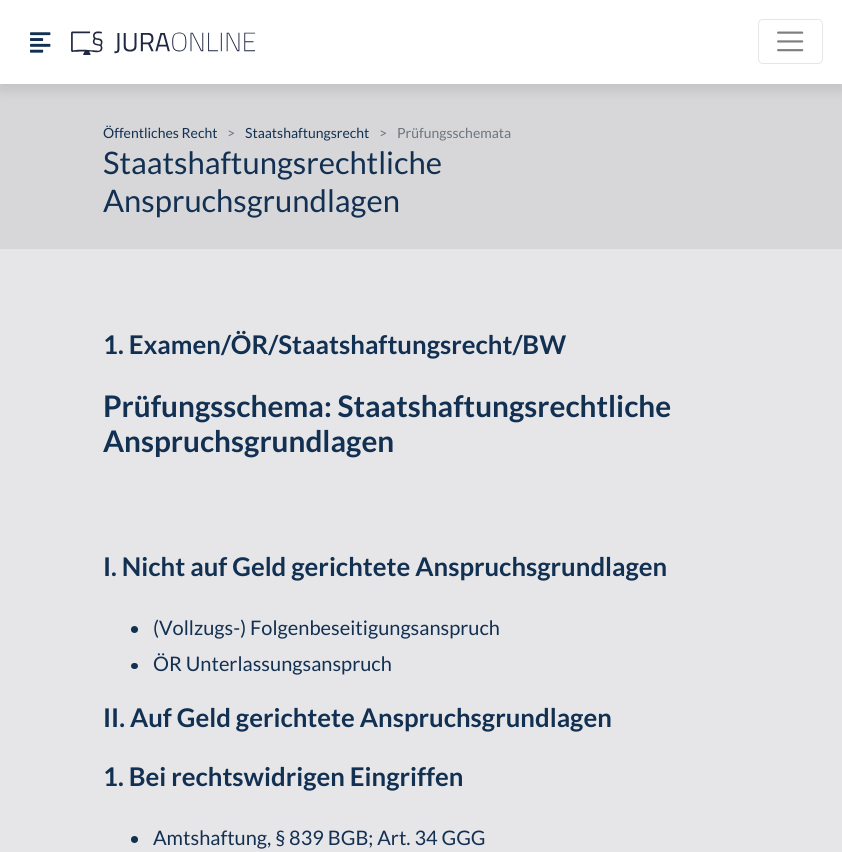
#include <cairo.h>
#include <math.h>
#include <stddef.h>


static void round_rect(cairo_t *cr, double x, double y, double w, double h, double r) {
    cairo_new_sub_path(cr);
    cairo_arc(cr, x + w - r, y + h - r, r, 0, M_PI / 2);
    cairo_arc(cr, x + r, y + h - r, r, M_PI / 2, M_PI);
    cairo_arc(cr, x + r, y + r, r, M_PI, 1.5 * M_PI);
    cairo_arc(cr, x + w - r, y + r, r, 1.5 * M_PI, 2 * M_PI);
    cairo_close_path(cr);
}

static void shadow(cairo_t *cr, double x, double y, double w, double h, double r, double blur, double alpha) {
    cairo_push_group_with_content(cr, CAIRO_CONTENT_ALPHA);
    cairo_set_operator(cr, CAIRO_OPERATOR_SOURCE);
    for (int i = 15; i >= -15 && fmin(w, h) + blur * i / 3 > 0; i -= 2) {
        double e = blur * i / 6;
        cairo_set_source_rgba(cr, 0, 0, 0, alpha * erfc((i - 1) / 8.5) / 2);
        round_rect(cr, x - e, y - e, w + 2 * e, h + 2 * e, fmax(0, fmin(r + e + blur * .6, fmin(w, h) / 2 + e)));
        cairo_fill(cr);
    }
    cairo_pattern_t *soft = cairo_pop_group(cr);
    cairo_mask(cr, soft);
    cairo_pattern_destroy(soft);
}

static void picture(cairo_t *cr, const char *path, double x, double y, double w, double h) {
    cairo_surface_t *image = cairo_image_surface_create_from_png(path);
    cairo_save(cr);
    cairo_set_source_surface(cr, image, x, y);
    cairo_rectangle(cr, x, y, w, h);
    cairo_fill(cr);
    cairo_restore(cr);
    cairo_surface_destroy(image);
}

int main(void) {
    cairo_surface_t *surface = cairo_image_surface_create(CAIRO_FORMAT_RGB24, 842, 852);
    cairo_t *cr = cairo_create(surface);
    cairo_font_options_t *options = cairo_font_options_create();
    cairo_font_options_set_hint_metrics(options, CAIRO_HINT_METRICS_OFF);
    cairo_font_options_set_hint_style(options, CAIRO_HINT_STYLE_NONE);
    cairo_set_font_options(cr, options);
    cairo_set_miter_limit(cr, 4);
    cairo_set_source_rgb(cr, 0.961, 0.961, 0.973);
    cairo_paint(cr);
    cairo_set_source_rgb(cr, 0, 0, 0);
    shadow(cr, 0, 6, 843, 84, 0, 6, 0.1);
    cairo_set_source_rgb(cr, 1, 1, 1);
    cairo_rectangle(cr, 0, 0, 842, 84);
    cairo_fill(cr);
    picture(cr, "img1.png", 30, 32, 21, 21);
    picture(cr, "img2.png", 71, 31, 185, 24);
    round_rect(cr, 758.5, 19.5, 64, 44, 4.5);
    cairo_set_source_rgb(cr, 0.902, 0.902, 0.902);
    cairo_set_line_width(cr, 1);
    cairo_stroke(cr);
    picture(cr, "img3.png", 777, 31, 27, 21);
    cairo_set_source_rgba(cr, 0, 0, 0, 0.07);
    cairo_rectangle(cr, 0, 84, 842, 768);
    cairo_fill(cr);
    cairo_rectangle(cr, 0, 84, 842, 165);
    cairo_fill(cr);
    cairo_select_font_face(cr, "Lato", CAIRO_FONT_SLANT_NORMAL, CAIRO_FONT_WEIGHT_NORMAL);
    cairo_set_font_size(cr, 14);
    cairo_set_source_rgb(cr, 0.071, 0.188, 0.322);
    cairo_move_to(cr, 103, 138);
    cairo_show_text(cr, "Öffentliches Recht");
    cairo_set_source_rgb(cr, 0.424, 0.459, 0.49);
    cairo_move_to(cr, 227, 138);
    cairo_show_text(cr, ">");
    cairo_set_source_rgb(cr, 0.071, 0.188, 0.322);
    cairo_move_to(cr, 245, 138);
    cairo_show_text(cr, "Staatshaftungsrecht");
    cairo_set_source_rgb(cr, 0.424, 0.459, 0.49);
    cairo_move_to(cr, 379, 138);
    cairo_show_text(cr, ">");
    cairo_move_to(cr, 397, 138);
    cairo_show_text(cr, "Prüfungsschemata");
    cairo_set_font_size(cr, 31);
    cairo_set_source_rgb(cr, 0.071, 0.188, 0.322);
    cairo_move_to(cr, 103, 174);
    cairo_show_text(cr, "Staatshaftungsrechtliche");
    cairo_move_to(cr, 103, 212);
    cairo_show_text(cr, "Anspruchsgrundlagen");
    cairo_select_font_face(cr, "Lato", CAIRO_FONT_SLANT_NORMAL, CAIRO_FONT_WEIGHT_BOLD);
    cairo_set_font_size(cr, 25.75);
    cairo_move_to(cr, 103, 354);
    cairo_show_text(cr, "1. Examen/ÖR/Staatshaftungsrecht/BW");
    cairo_set_font_size(cr, 29.75);
    cairo_move_to(cr, 103, 417);
    cairo_show_text(cr, "Prüfungsschema: Staatshaftungsrechtliche");
    cairo_move_to(cr, 103, 452);
    cairo_show_text(cr, "Anspruchsgrundlagen");
    cairo_set_font_size(cr, 25.75);
    cairo_move_to(cr, 103, 576);
    cairo_show_text(cr, "I. Nicht auf Geld gerichtete Anspruchsgrundlagen");
    cairo_new_path(cr);
    cairo_arc(cr, 134.5, 629.5, 3.5, 0, 2 * M_PI);
    cairo_fill(cr);
    cairo_select_font_face(cr, "Lato", CAIRO_FONT_SLANT_NORMAL, CAIRO_FONT_WEIGHT_NORMAL);
    cairo_set_font_size(cr, 20);
    cairo_move_to(cr, 153, 635);
    cairo_show_text(cr, "(Vollzugs-) Folgenbeseitigungsanspruch");
    round_rect(cr, 131, 663, 7, 6, 3);
    cairo_fill(cr);
    cairo_move_to(cr, 153, 671);
    cairo_show_text(cr, "ÖR Unterlassungsanspruch");
    cairo_select_font_face(cr, "Lato", CAIRO_FONT_SLANT_NORMAL, CAIRO_FONT_WEIGHT_BOLD);
    cairo_set_font_size(cr, 25.75);
    cairo_move_to(cr, 103, 727);
    cairo_show_text(cr, "II. Auf Geld gerichtete Anspruchsgrundlagen");
    cairo_move_to(cr, 103, 786);
    cairo_show_text(cr, "1. Bei rechtswidrigen Eingriffen");
    cairo_new_path(cr);
    cairo_arc(cr, 134.5, 839.5, 3.5, 0, 2 * M_PI);
    cairo_fill(cr);
    cairo_select_font_face(cr, "Lato", CAIRO_FONT_SLANT_NORMAL, CAIRO_FONT_WEIGHT_NORMAL);
    cairo_set_font_size(cr, 20);
    cairo_move_to(cr, 153, 845);
    cairo_show_text(cr, "Amtshaftung, § 839 BGB; Art. 34 GGG");
    cairo_surface_write_to_png(surface, "page.png");
    cairo_font_options_destroy(options);
    cairo_destroy(cr);
    cairo_surface_destroy(surface);
    return 0;
}
